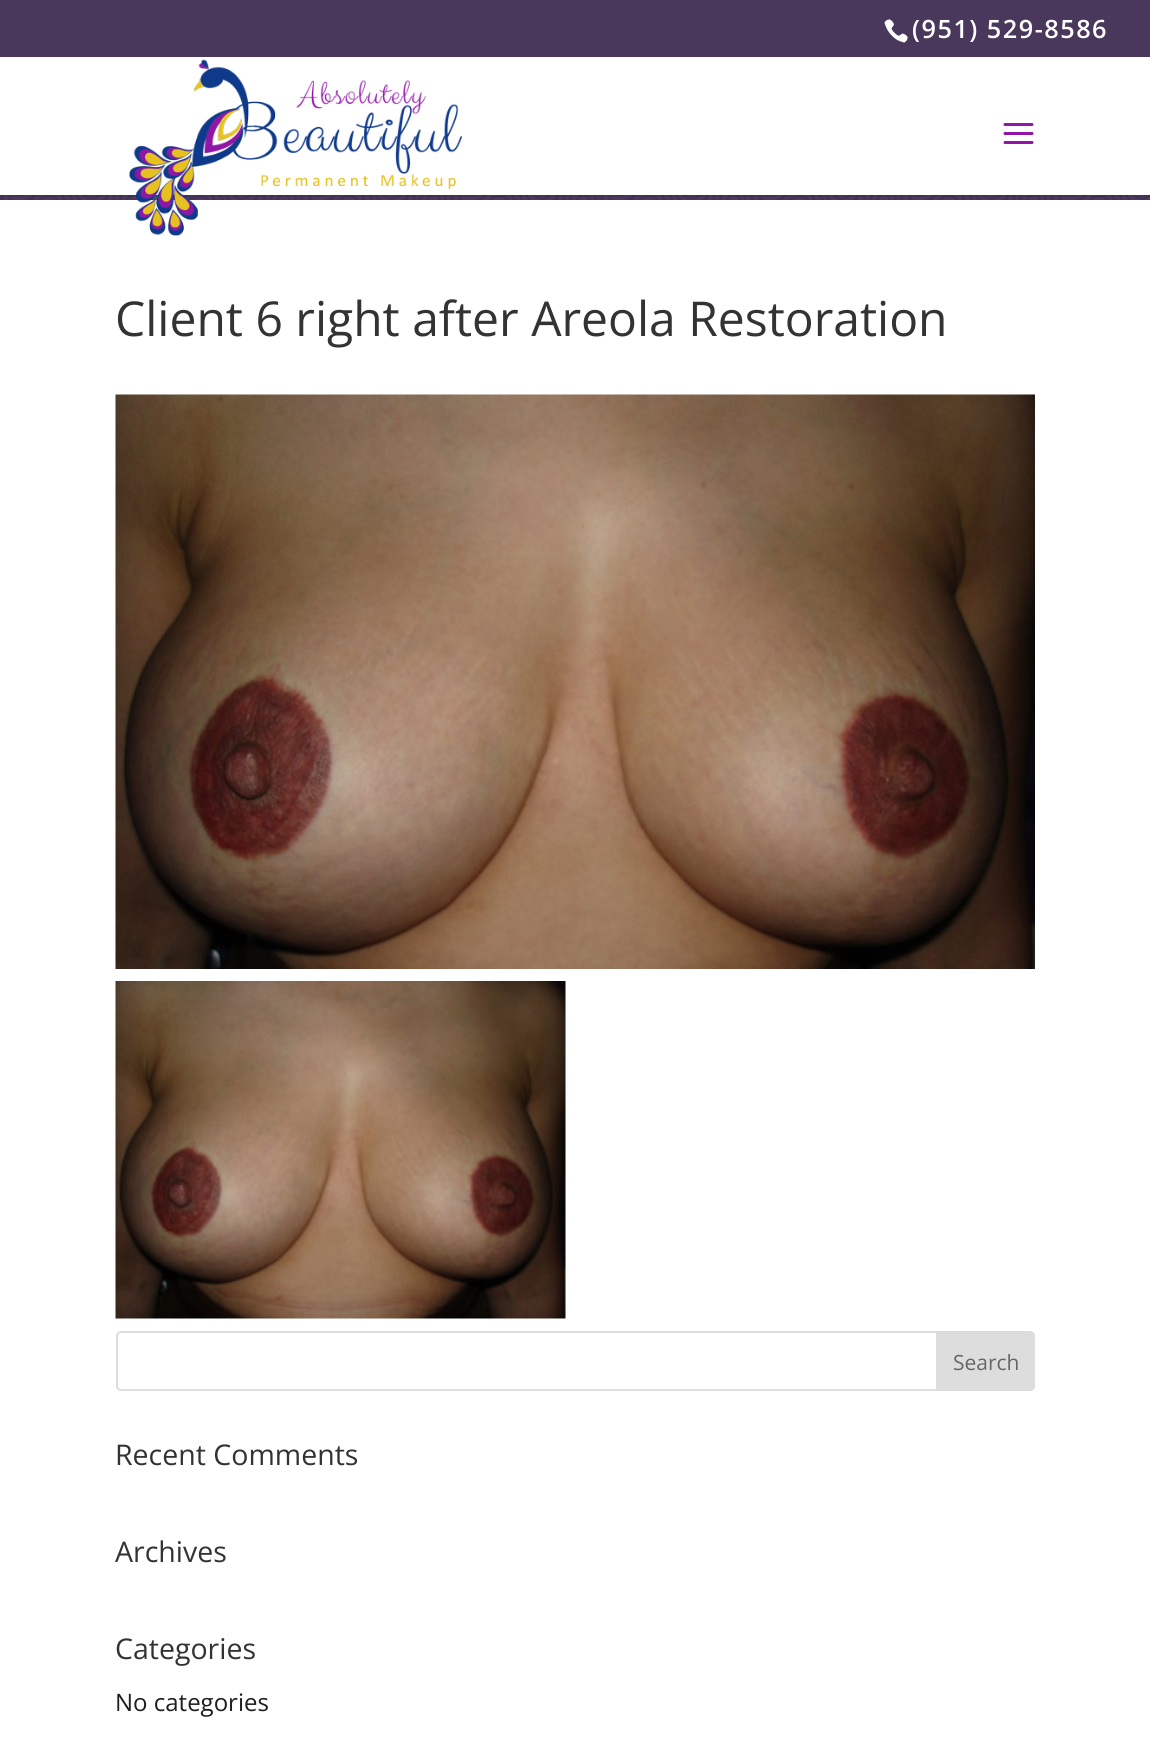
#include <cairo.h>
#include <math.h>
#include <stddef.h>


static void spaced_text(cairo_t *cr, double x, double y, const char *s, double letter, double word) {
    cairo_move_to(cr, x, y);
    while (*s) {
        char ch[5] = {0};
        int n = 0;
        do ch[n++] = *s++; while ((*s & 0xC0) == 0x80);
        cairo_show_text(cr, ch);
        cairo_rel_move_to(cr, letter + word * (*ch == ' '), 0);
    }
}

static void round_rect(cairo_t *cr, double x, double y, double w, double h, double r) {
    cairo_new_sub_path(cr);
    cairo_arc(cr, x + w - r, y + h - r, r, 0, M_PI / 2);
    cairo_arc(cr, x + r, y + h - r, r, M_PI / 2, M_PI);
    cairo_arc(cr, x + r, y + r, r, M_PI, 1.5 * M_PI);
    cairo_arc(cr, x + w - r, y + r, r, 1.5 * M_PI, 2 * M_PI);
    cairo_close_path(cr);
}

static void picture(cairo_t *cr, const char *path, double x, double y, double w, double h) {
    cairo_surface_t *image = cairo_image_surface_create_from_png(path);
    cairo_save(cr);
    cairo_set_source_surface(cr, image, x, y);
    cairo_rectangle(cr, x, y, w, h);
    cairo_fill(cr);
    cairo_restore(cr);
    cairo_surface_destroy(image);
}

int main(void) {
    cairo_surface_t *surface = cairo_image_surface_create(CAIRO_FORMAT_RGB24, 1150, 1757);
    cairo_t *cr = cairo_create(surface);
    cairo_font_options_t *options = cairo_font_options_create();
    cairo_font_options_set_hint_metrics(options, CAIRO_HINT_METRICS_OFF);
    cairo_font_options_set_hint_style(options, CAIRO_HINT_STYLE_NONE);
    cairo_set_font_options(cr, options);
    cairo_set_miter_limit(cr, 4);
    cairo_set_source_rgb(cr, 1, 1, 1);
    cairo_paint(cr);
    picture(cr, "img1.png", 0, 195, 1150, 5);
    cairo_set_source_rgb(cr, 0.29, 0.22, 0.361);
    cairo_rectangle(cr, 0, 0, 1150, 57);
    cairo_fill(cr);
    picture(cr, "img2.png", 884, 19, 24, 24);
    cairo_select_font_face(cr, "Open Sans SemiBold", CAIRO_FONT_SLANT_NORMAL, CAIRO_FONT_WEIGHT_NORMAL);
    cairo_set_font_size(cr, 25.25);
    cairo_set_source_rgb(cr, 1, 1, 1);
    spaced_text(cr, 912, 38, "(951) 529-8586", 1.5, 0);
    cairo_set_source_rgba(cr, 0, 0, 0, 0.1);
    cairo_new_path(cr);
    cairo_move_to(cr, 0, 195);
    cairo_line_to(cr, 0, 197);
    cairo_line_to(cr, 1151, 197);
    cairo_line_to(cr, 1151, 59);
    cairo_line_to(cr, 1150, 59);
    cairo_line_to(cr, 1150, 195);
    cairo_close_path(cr);
    cairo_fill(cr);
    picture(cr, "img3.png", 129, 59, 333, 178);
    picture(cr, "img4.png", 1003, 123, 31, 21);
    cairo_select_font_face(cr, "Open Sans", CAIRO_FONT_SLANT_NORMAL, CAIRO_FONT_WEIGHT_NORMAL);
    cairo_set_font_size(cr, 48);
    cairo_set_source_rgb(cr, 0.2, 0.2, 0.2);
    cairo_move_to(cr, 115, 336);
    cairo_show_text(cr, "Client 6 right after Areola Restoration");
    picture(cr, "img5.png", 115, 394, 920, 575);
    picture(cr, "img6.png", 115, 981, 451, 338);
    round_rect(cr, 117, 1332, 917, 58, 4);
    cairo_set_source_rgb(cr, 0.867, 0.867, 0.867);
    cairo_stroke(cr);
    cairo_new_path(cr);
    cairo_move_to(cr, 937, 1332);
    cairo_line_to(cr, 1030, 1332);
    cairo_curve_to(cr, 1032, 1332, 1034, 1334, 1034, 1336);
    cairo_line_to(cr, 1034, 1386);
    cairo_curve_to(cr, 1034, 1388, 1032, 1390, 1030, 1390);
    cairo_line_to(cr, 937, 1390);
    cairo_close_path(cr);
    cairo_fill_preserve(cr);
    cairo_stroke(cr);
    cairo_set_font_size(cr, 21);
    cairo_set_source_rgb(cr, 0.4, 0.4, 0.4);
    cairo_move_to(cr, 953, 1370);
    cairo_show_text(cr, "Search");
    cairo_set_font_size(cr, 28.5);
    cairo_set_source_rgb(cr, 0.2, 0.2, 0.2);
    cairo_move_to(cr, 115, 1465);
    cairo_show_text(cr, "Recent Comments");
    cairo_move_to(cr, 115, 1562);
    cairo_show_text(cr, "Archives");
    cairo_move_to(cr, 115, 1659);
    cairo_show_text(cr, "Categories");
    cairo_set_font_size(cr, 24);
    cairo_set_source_rgb(cr, 0.118, 0.118, 0.118);
    cairo_move_to(cr, 115, 1711);
    cairo_show_text(cr, "No categories");
    cairo_surface_write_to_png(surface, "page.png");
    cairo_font_options_destroy(options);
    cairo_destroy(cr);
    cairo_surface_destroy(surface);
    return 0;
}
